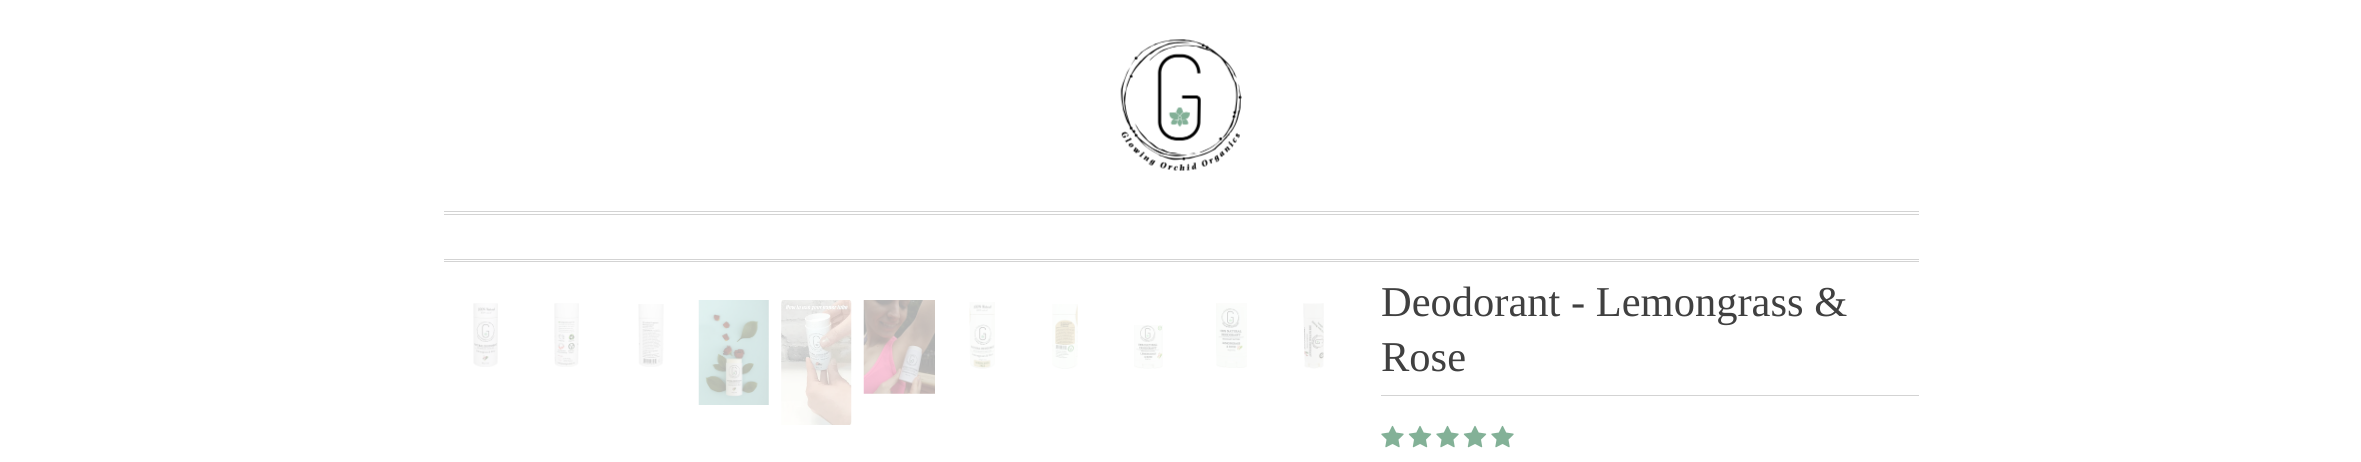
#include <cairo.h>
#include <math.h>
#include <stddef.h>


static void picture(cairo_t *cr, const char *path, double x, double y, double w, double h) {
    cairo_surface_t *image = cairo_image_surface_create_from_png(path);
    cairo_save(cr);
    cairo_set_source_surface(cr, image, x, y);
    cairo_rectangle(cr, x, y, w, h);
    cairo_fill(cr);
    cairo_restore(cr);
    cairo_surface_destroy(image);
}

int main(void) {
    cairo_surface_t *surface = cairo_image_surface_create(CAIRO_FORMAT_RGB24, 2361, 462);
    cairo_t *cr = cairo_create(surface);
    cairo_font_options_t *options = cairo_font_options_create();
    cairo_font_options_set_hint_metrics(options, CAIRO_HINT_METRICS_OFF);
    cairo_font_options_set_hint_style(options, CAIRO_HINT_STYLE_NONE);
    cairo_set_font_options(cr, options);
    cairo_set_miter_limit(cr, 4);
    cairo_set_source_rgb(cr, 1, 1, 1);
    cairo_paint(cr);
    picture(cr, "img1.png", 1120, 39, 122, 132);
    cairo_set_source_rgb(cr, 0.827, 0.827, 0.827);
    cairo_rectangle(cr, 444, 211, 1475, 1);
    cairo_fill(cr);
    cairo_rectangle(cr, 444, 214, 1475, 1);
    cairo_fill(cr);
    cairo_rectangle(cr, 444, 259, 1475, 1);
    cairo_fill(cr);
    cairo_rectangle(cr, 444, 261, 1475, 1);
    cairo_fill(cr);
    picture(cr, "img2.png", 473, 303, 25, 64);
    picture(cr, "img3.png", 554, 303, 25, 64);
    picture(cr, "img4.png", 638, 304, 26, 63);
    picture(cr, "img5.png", 698, 300, 71, 105);
    picture(cr, "img6.png", 781, 300, 71, 125);
    picture(cr, "img7.png", 863, 300, 72, 94);
    picture(cr, "img8.png", 969, 302, 26, 67);
    picture(cr, "img9.png", 1052, 304, 26, 65);
    picture(cr, "img10.png", 1134, 325, 29, 44);
    picture(cr, "img11.png", 1216, 303, 31, 65);
    picture(cr, "img12.png", 1303, 303, 21, 66);
    cairo_rectangle(cr, 1381, 395, 538, 1);
    cairo_fill(cr);
    cairo_select_font_face(cr, "Liberation Serif", CAIRO_FONT_SLANT_NORMAL, CAIRO_FONT_WEIGHT_NORMAL);
    cairo_set_font_size(cr, 42.5);
    cairo_set_source_rgb(cr, 0.251, 0.251, 0.251);
    cairo_move_to(cr, 1381, 316);
    cairo_show_text(cr, "Deodorant - Lemongrass &");
    cairo_move_to(cr, 1381, 371);
    cairo_show_text(cr, "Rose");
    picture(cr, "img13.png", 1381, 425, 23, 23);
    picture(cr, "img14.png", 1408, 425, 24, 23);
    picture(cr, "img13.png", 1436, 425, 23, 23);
    picture(cr, "img14.png", 1463, 425, 24, 23);
    picture(cr, "img13.png", 1491, 425, 23, 23);
    cairo_surface_write_to_png(surface, "page.png");
    cairo_font_options_destroy(options);
    cairo_destroy(cr);
    cairo_surface_destroy(surface);
    return 0;
}
